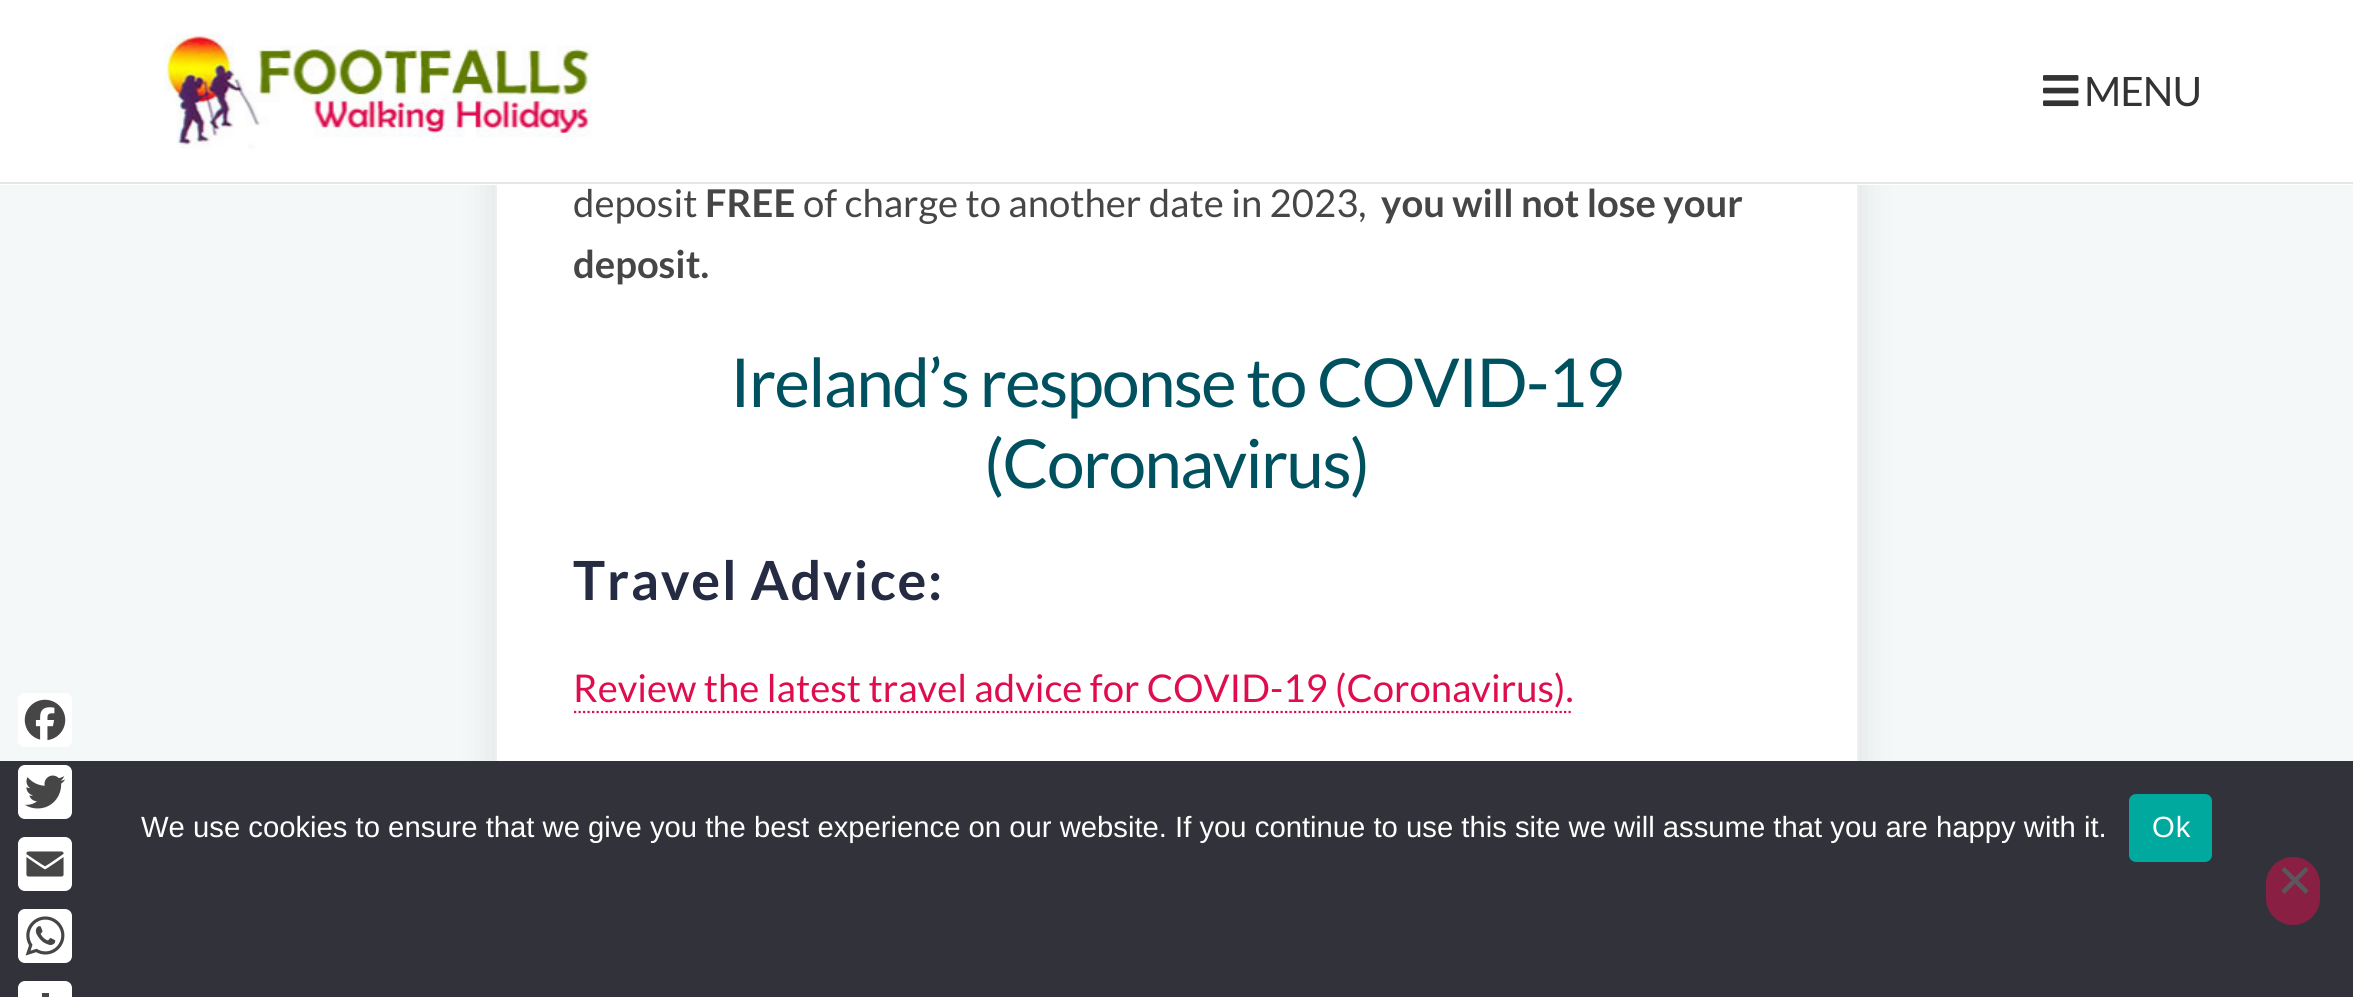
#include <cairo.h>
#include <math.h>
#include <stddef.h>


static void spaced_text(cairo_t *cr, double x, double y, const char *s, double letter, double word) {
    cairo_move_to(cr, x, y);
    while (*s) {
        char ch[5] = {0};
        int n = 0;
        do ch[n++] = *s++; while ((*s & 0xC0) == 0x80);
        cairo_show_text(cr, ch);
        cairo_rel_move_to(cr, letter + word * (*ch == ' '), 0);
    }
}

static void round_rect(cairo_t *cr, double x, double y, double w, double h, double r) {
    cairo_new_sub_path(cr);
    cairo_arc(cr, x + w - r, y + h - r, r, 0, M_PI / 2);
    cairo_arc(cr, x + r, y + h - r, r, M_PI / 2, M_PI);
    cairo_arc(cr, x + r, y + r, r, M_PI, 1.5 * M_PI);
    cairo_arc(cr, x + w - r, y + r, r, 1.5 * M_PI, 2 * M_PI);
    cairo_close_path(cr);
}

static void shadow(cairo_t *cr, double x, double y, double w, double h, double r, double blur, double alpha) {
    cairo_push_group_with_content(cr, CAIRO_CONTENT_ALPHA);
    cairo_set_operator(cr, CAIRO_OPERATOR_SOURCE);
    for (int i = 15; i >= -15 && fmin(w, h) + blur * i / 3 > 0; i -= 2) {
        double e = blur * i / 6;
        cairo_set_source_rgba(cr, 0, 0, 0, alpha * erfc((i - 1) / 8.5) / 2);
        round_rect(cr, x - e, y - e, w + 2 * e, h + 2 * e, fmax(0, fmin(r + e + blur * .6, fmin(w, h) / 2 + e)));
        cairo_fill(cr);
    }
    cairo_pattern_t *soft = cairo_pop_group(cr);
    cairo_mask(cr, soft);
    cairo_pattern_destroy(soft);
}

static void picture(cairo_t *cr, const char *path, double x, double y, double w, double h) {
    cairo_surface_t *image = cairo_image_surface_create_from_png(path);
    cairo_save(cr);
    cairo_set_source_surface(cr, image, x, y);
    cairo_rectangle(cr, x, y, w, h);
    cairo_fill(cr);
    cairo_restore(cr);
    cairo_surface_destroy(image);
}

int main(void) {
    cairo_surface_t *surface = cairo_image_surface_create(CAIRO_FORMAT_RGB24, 2353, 997);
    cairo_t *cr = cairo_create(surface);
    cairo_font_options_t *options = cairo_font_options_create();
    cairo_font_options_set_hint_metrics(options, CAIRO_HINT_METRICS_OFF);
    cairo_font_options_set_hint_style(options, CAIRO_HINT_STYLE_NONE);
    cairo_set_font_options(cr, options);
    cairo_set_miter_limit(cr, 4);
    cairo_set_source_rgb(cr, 0.957, 0.969, 0.969);
    cairo_paint(cr);
    cairo_set_source_rgb(cr, 0, 0, 0);
    shadow(cr, 495, -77, 1364, 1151, 23, 18, 0.1);
    cairo_set_source_rgb(cr, 1, 1, 1);
    cairo_rectangle(cr, 497, 185, 1360, 576);
    cairo_fill(cr);
    cairo_rectangle(cr, 496, -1, 1362, 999);
    cairo_set_source_rgb(cr, 0.937, 0.937, 0.937);
    cairo_stroke(cr);
    cairo_set_source_rgb(cr, 1, 1, 1);
    cairo_rectangle(cr, 0, 0, 2353, 185);
    cairo_fill(cr);
    cairo_set_source_rgb(cr, 0.902, 0.902, 0.902);
    cairo_rectangle(cr, 0, 182, 2353, 2);
    cairo_fill(cr);
    picture(cr, "img1.png", 164, 34, 428, 115);
    picture(cr, "img2.png", 2043, 75, 36, 32);
    cairo_select_font_face(cr, "Lato", CAIRO_FONT_SLANT_NORMAL, CAIRO_FONT_WEIGHT_NORMAL);
    cairo_set_font_size(cr, 40.5);
    cairo_set_source_rgb(cr, 0.2, 0.2, 0.2);
    spaced_text(cr, 2084, 106, "MENU", -1, 0);
    cairo_set_font_size(cr, 38.25);
    cairo_set_source_rgb(cr, 0.275, 0.275, 0.275);
    cairo_move_to(cr, 573, 217);
    cairo_show_text(cr, "deposit");
    cairo_select_font_face(cr, "Lato", CAIRO_FONT_SLANT_NORMAL, CAIRO_FONT_WEIGHT_BOLD);
    cairo_move_to(cr, 705, 217);
    cairo_show_text(cr, "FREE");
    cairo_select_font_face(cr, "Lato", CAIRO_FONT_SLANT_NORMAL, CAIRO_FONT_WEIGHT_NORMAL);
    cairo_move_to(cr, 803, 217);
    cairo_show_text(cr, "of charge to another date in 2023,");
    cairo_select_font_face(cr, "Lato", CAIRO_FONT_SLANT_NORMAL, CAIRO_FONT_WEIGHT_BOLD);
    cairo_move_to(cr, 1381, 217);
    cairo_show_text(cr, "you will not lose your");
    cairo_move_to(cr, 573, 278);
    cairo_show_text(cr, "deposit.");
    cairo_select_font_face(cr, "Lato", CAIRO_FONT_SLANT_NORMAL, CAIRO_FONT_WEIGHT_NORMAL);
    cairo_set_font_size(cr, 67.5);
    cairo_set_source_rgb(cr, 0, 0.318, 0.373);
    spaced_text(cr, 730, 407, "Ireland’s response to COVID-19", -1.7, 0);
    spaced_text(cr, 984, 488, "(Coronavirus)", -1.7, 0);
    cairo_select_font_face(cr, "Lato", CAIRO_FONT_SLANT_NORMAL, CAIRO_FONT_WEIGHT_BOLD);
    cairo_set_font_size(cr, 54);
    cairo_set_source_rgb(cr, 0.145, 0.169, 0.263);
    spaced_text(cr, 573, 600, "Travel Advice:", 1.75, 0);
    cairo_select_font_face(cr, "Lato", CAIRO_FONT_SLANT_NORMAL, CAIRO_FONT_WEIGHT_NORMAL);
    cairo_set_font_size(cr, 38.25);
    cairo_set_source_rgb(cr, 0.878, 0.051, 0.306);
    cairo_move_to(cr, 573, 702);
    cairo_show_text(cr, "Review the latest travel advice for COVID-19 (Coronavirus).");
    cairo_new_path(cr);
    cairo_move_to(cr, 574, 712);
    cairo_line_to(cr, 1573, 712);
    cairo_set_line_width(cr, 2.2);
    cairo_set_dash(cr, (double[]){2.25, 2.25}, 2, 0);
    cairo_stroke(cr);
    cairo_set_source_rgb(cr, 1, 1, 1);
    round_rect(cr, 18, 693, 54, 54, 7);
    cairo_fill(cr);
    picture(cr, "img3.png", 24, 699, 42, 42);
    cairo_set_source_rgb(cr, 0.196, 0.196, 0.227);
    cairo_rectangle(cr, 0, 761, 2353, 236);
    cairo_fill(cr);
    cairo_set_source_rgb(cr, 1, 1, 1);
    round_rect(cr, 18, 765, 54, 54, 7);
    cairo_fill(cr);
    picture(cr, "img4.png", 25, 775, 41, 34);
    round_rect(cr, 18, 837, 54, 54, 7);
    cairo_fill(cr);
    picture(cr, "img5.png", 26, 851, 38, 26);
    round_rect(cr, 18, 909, 54, 54, 7);
    cairo_fill(cr);
    picture(cr, "img6.png", 25, 916, 40, 40);
    round_rect(cr, 18, 981, 54, 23, 7);
    cairo_fill(cr);
    cairo_set_source_rgb(cr, 0.275, 0.275, 0.275);
    cairo_rectangle(cr, 42, 993, 7, 4);
    cairo_fill(cr);
    cairo_select_font_face(cr, "Liberation Sans", CAIRO_FONT_SLANT_NORMAL, CAIRO_FONT_WEIGHT_NORMAL);
    cairo_set_font_size(cr, 29.25);
    cairo_set_source_rgb(cr, 1, 1, 1);
    cairo_move_to(cr, 141, 837);
    cairo_show_text(cr, "We use cookies to ensure that we give you the best experience on our website. If you continue to use this site we will assume that you are happy with it.");
    cairo_set_source_rgb(cr, 0, 0.663, 0.616);
    round_rect(cr, 2129, 794, 83, 68, 7);
    cairo_fill(cr);
    cairo_set_source_rgb(cr, 1, 1, 1);
    spaced_text(cr, 2152, 837, "Ok", 1, 0);
    cairo_set_source_rgb(cr, 0.537, 0.125, 0.267);
    round_rect(cr, 2266, 857, 54, 68, 27);
    cairo_fill(cr);
    cairo_set_source_rgb(cr, 0.349, 0.349, 0.365);
    cairo_new_path(cr);
    cairo_move_to(cr, 2305.5, 867);
    cairo_line_to(cr, 2308.5, 870);
    cairo_line_to(cr, 2284.5, 894);
    cairo_line_to(cr, 2281.5, 890.5);
    cairo_close_path(cr);
    cairo_fill(cr);
    cairo_new_path(cr);
    cairo_move_to(cr, 2281.5, 870);
    cairo_line_to(cr, 2284.5, 867);
    cairo_line_to(cr, 2308.5, 890.5);
    cairo_line_to(cr, 2305.5, 894);
    cairo_close_path(cr);
    cairo_fill(cr);
    cairo_surface_write_to_png(surface, "page.png");
    cairo_font_options_destroy(options);
    cairo_destroy(cr);
    cairo_surface_destroy(surface);
    return 0;
}
